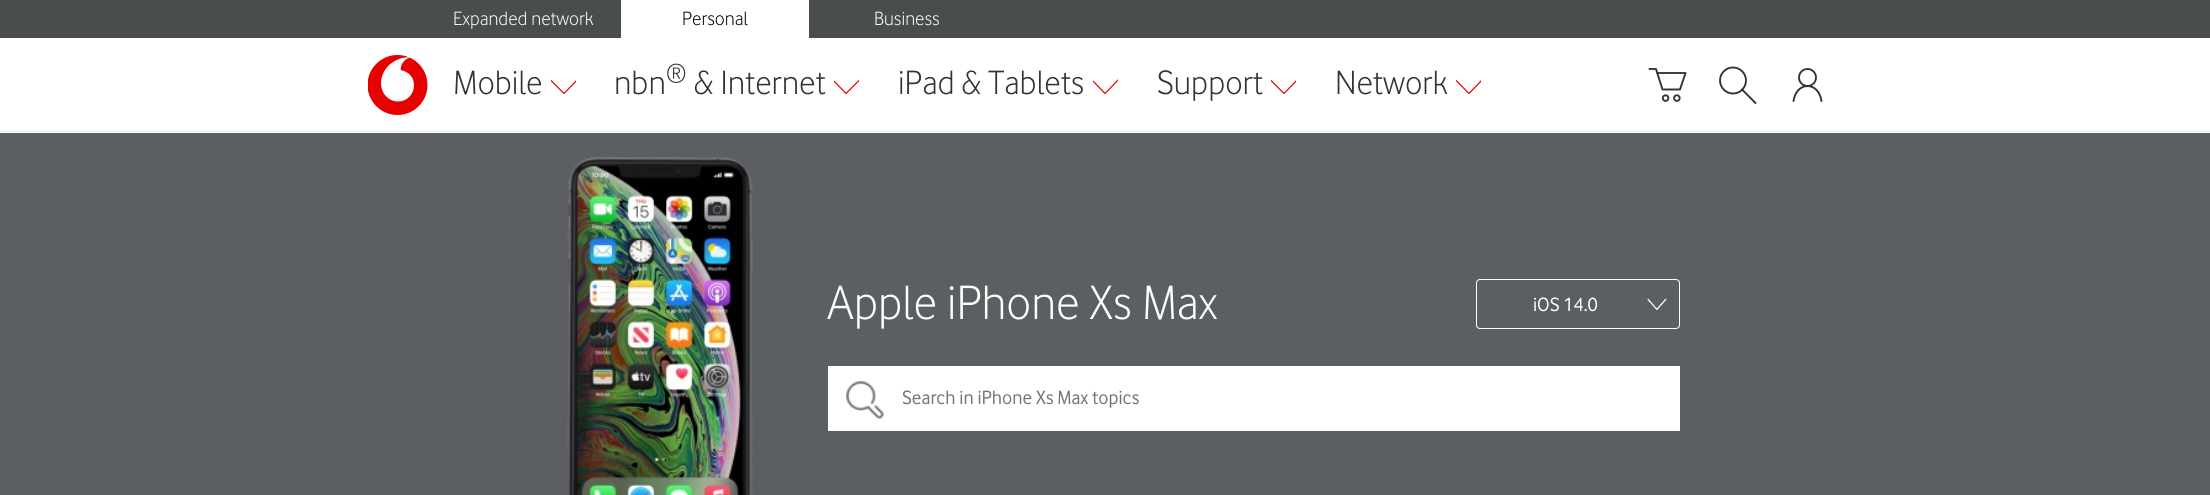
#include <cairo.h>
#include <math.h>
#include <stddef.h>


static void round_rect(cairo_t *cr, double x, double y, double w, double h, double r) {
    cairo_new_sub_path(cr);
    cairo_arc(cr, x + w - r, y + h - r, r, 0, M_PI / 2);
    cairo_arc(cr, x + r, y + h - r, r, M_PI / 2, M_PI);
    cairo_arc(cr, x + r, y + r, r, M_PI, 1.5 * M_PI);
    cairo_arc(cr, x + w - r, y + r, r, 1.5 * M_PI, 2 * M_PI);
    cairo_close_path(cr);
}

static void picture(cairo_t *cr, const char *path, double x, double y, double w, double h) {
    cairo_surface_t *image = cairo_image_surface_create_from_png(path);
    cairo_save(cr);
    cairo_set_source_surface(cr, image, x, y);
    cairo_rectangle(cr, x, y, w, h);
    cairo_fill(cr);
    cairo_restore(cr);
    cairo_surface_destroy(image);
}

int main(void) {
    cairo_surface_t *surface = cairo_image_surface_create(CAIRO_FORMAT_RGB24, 2210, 495);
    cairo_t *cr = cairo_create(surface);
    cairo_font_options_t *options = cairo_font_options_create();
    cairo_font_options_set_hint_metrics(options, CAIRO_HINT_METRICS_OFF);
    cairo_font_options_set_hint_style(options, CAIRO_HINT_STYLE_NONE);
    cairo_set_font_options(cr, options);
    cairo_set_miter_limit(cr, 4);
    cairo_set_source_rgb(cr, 1, 1, 1);
    cairo_paint(cr);
    cairo_set_source_rgb(cr, 0.29, 0.302, 0.306);
    cairo_rectangle(cr, 0, 0, 2210, 38);
    cairo_fill(cr);
    cairo_select_font_face(cr, "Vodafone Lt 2", CAIRO_FONT_SLANT_NORMAL, CAIRO_FONT_WEIGHT_NORMAL);
    cairo_set_font_size(cr, 20);
    cairo_set_source_rgb(cr, 1, 1, 1);
    cairo_move_to(cr, 453, 25);
    cairo_show_text(cr, "Expanded network");
    cairo_rectangle(cr, 621, 0, 188, 38);
    cairo_fill(cr);
    cairo_set_source_rgb(cr, 0, 0, 0);
    cairo_move_to(cr, 682, 25);
    cairo_show_text(cr, "Personal");
    cairo_set_source_rgb(cr, 1, 1, 1);
    cairo_move_to(cr, 874, 25);
    cairo_show_text(cr, "Business");
    cairo_set_source_rgb(cr, 0.922, 0.922, 0.922);
    cairo_rectangle(cr, 0, 131, 2210, 1);
    cairo_fill(cr);
    picture(cr, "img1.png", 368, 55, 60, 60);
    cairo_set_font_size(cr, 35);
    cairo_set_source_rgb(cr, 0.2, 0.2, 0.2);
    cairo_move_to(cr, 453, 94);
    cairo_show_text(cr, "Mobile");
    cairo_save(cr);
    cairo_rectangle(cr, 551, 73, 25, 25);
    cairo_clip(cr);
    cairo_new_path(cr);
    cairo_move_to(cr, 549.5, 79);
    cairo_line_to(cr, 564, 93.5);
    cairo_line_to(cr, 578, 79);
    cairo_set_source_rgb(cr, 0.902, 0, 0);
    cairo_set_line_width(cr, 1.2);
    cairo_set_line_cap(cr, CAIRO_LINE_CAP_ROUND);
    cairo_set_line_join(cr, CAIRO_LINE_JOIN_ROUND);
    cairo_stroke(cr);
    cairo_restore(cr);
    cairo_move_to(cr, 614, 94);
    cairo_show_text(cr, "nbn");
    cairo_set_font_size(cr, 26);
    cairo_move_to(cr, 666, 81);
    cairo_show_text(cr, "®");
    cairo_set_font_size(cr, 35);
    cairo_move_to(cr, 694, 94);
    cairo_show_text(cr, "& Internet");
    cairo_save(cr);
    cairo_rectangle(cr, 834, 73, 25, 25);
    cairo_clip(cr);
    cairo_new_path(cr);
    cairo_move_to(cr, 832, 79);
    cairo_line_to(cr, 846, 93.5);
    cairo_line_to(cr, 860.5, 79);
    cairo_set_source_rgb(cr, 0.902, 0, 0);
    cairo_set_line_width(cr, 1.2);
    cairo_set_line_cap(cr, CAIRO_LINE_CAP_ROUND);
    cairo_set_line_join(cr, CAIRO_LINE_JOIN_ROUND);
    cairo_stroke(cr);
    cairo_restore(cr);
    cairo_move_to(cr, 898, 94);
    cairo_show_text(cr, "iPad & Tablets");
    cairo_save(cr);
    cairo_rectangle(cr, 1093, 73, 25, 25);
    cairo_clip(cr);
    cairo_new_path(cr);
    cairo_move_to(cr, 1091, 79);
    cairo_line_to(cr, 1105, 93.5);
    cairo_line_to(cr, 1119, 79);
    cairo_set_source_rgb(cr, 0.902, 0, 0);
    cairo_set_line_width(cr, 1.2);
    cairo_set_line_cap(cr, CAIRO_LINE_CAP_ROUND);
    cairo_set_line_join(cr, CAIRO_LINE_JOIN_ROUND);
    cairo_stroke(cr);
    cairo_restore(cr);
    cairo_move_to(cr, 1157, 94);
    cairo_show_text(cr, "Support");
    cairo_save(cr);
    cairo_rectangle(cr, 1271, 73, 25, 25);
    cairo_clip(cr);
    cairo_new_path(cr);
    cairo_move_to(cr, 1269.5, 79);
    cairo_line_to(cr, 1284, 93.5);
    cairo_line_to(cr, 1298, 79);
    cairo_set_source_rgb(cr, 0.902, 0, 0);
    cairo_set_line_width(cr, 1.2);
    cairo_set_line_cap(cr, CAIRO_LINE_CAP_ROUND);
    cairo_set_line_join(cr, CAIRO_LINE_JOIN_ROUND);
    cairo_stroke(cr);
    cairo_restore(cr);
    cairo_move_to(cr, 1335, 94);
    cairo_show_text(cr, "Network");
    cairo_save(cr);
    cairo_rectangle(cr, 1456, 73, 25, 25);
    cairo_clip(cr);
    cairo_new_path(cr);
    cairo_move_to(cr, 1454.5, 79);
    cairo_line_to(cr, 1469, 93.5);
    cairo_line_to(cr, 1483, 79);
    cairo_set_source_rgb(cr, 0.902, 0, 0);
    cairo_set_line_width(cr, 1.2);
    cairo_set_line_cap(cr, CAIRO_LINE_CAP_ROUND);
    cairo_set_line_join(cr, CAIRO_LINE_JOIN_ROUND);
    cairo_stroke(cr);
    cairo_restore(cr);
    cairo_new_path(cr);
    cairo_move_to(cr, 1649.5, 69);
    cairo_line_to(cr, 1656, 69);
    cairo_line_to(cr, 1662.5, 89.5);
    cairo_line_to(cr, 1680, 89.5);
    cairo_line_to(cr, 1685.5, 73);
    cairo_line_to(cr, 1657, 73);
    cairo_set_line_width(cr, 1.9);
    cairo_set_line_cap(cr, CAIRO_LINE_CAP_ROUND);
    cairo_set_line_join(cr, CAIRO_LINE_JOIN_ROUND);
    cairo_stroke(cr);
    cairo_arc(cr, 1665.6, 98.1, 2.8, 0, 2 * M_PI);
    cairo_set_line_cap(cr, CAIRO_LINE_CAP_BUTT);
    cairo_set_line_join(cr, CAIRO_LINE_JOIN_MITER);
    cairo_stroke(cr);
    cairo_arc(cr, 1676.9, 98.1, 2.8, 0, 2 * M_PI);
    cairo_stroke(cr);
    cairo_arc(cr, 1733, 80.5, 13, 0, 2 * M_PI);
    cairo_stroke(cr);
    cairo_new_path(cr);
    cairo_move_to(cr, 1742, 89.5);
    cairo_line_to(cr, 1755.5, 103);
    cairo_set_line_cap(cr, CAIRO_LINE_CAP_ROUND);
    cairo_set_line_join(cr, CAIRO_LINE_JOIN_ROUND);
    cairo_stroke(cr);
    cairo_new_path(cr);
    cairo_move_to(cr, 1821.5, 101);
    cairo_curve_to(cr, 1818.5, 81, 1796.5, 81, 1793.5, 101);
    cairo_stroke(cr);
    cairo_arc(cr, 1807.5, 77.5, 8.5, 0, 2 * M_PI);
    cairo_set_line_cap(cr, CAIRO_LINE_CAP_BUTT);
    cairo_set_line_join(cr, CAIRO_LINE_JOIN_MITER);
    cairo_stroke(cr);
    cairo_set_source_rgb(cr, 0.361, 0.373, 0.38);
    cairo_rectangle(cr, 0, 133, 2210, 362);
    cairo_fill(cr);
    picture(cr, "img2.png", 567, 157, 186, 338);
    cairo_select_font_face(cr, "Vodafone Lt", CAIRO_FONT_SLANT_NORMAL, CAIRO_FONT_WEIGHT_NORMAL);
    cairo_set_font_size(cr, 50);
    cairo_set_source_rgb(cr, 1, 1, 1);
    cairo_move_to(cr, 827, 319);
    cairo_show_text(cr, "Apple iPhone Xs Max");
    round_rect(cr, 1476.5, 279.5, 203, 49, 3.5);
    cairo_set_line_width(cr, 1);
    cairo_stroke(cr);
    cairo_select_font_face(cr, "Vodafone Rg", CAIRO_FONT_SLANT_NORMAL, CAIRO_FONT_WEIGHT_NORMAL);
    cairo_set_font_size(cr, 20);
    cairo_move_to(cr, 1533, 311);
    cairo_show_text(cr, "iOS 14.0");
    picture(cr, "img3.png", 1647, 298, 20, 12);
    cairo_rectangle(cr, 828, 366, 852, 65);
    cairo_fill(cr);
    picture(cr, "img4.png", 846, 381, 38, 38);
    cairo_save(cr);
    cairo_rectangle(cr, 903, 388, 752, 22);
    cairo_clip(cr);
    cairo_set_source_rgb(cr, 0.459, 0.459, 0.459);
    cairo_move_to(cr, 902, 404);
    cairo_show_text(cr, "Search in iPhone Xs Max topics");
    cairo_restore(cr);
    cairo_surface_write_to_png(surface, "page.png");
    cairo_font_options_destroy(options);
    cairo_destroy(cr);
    cairo_surface_destroy(surface);
    return 0;
}
